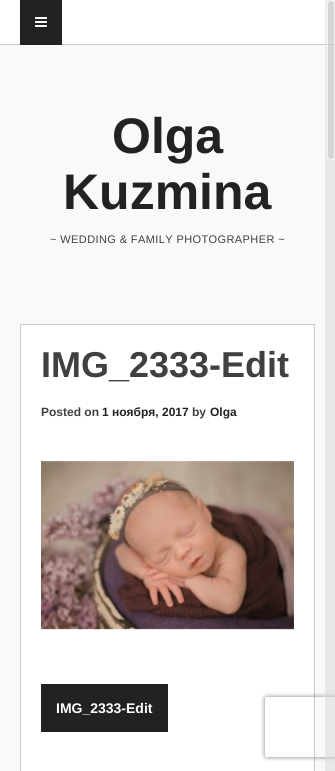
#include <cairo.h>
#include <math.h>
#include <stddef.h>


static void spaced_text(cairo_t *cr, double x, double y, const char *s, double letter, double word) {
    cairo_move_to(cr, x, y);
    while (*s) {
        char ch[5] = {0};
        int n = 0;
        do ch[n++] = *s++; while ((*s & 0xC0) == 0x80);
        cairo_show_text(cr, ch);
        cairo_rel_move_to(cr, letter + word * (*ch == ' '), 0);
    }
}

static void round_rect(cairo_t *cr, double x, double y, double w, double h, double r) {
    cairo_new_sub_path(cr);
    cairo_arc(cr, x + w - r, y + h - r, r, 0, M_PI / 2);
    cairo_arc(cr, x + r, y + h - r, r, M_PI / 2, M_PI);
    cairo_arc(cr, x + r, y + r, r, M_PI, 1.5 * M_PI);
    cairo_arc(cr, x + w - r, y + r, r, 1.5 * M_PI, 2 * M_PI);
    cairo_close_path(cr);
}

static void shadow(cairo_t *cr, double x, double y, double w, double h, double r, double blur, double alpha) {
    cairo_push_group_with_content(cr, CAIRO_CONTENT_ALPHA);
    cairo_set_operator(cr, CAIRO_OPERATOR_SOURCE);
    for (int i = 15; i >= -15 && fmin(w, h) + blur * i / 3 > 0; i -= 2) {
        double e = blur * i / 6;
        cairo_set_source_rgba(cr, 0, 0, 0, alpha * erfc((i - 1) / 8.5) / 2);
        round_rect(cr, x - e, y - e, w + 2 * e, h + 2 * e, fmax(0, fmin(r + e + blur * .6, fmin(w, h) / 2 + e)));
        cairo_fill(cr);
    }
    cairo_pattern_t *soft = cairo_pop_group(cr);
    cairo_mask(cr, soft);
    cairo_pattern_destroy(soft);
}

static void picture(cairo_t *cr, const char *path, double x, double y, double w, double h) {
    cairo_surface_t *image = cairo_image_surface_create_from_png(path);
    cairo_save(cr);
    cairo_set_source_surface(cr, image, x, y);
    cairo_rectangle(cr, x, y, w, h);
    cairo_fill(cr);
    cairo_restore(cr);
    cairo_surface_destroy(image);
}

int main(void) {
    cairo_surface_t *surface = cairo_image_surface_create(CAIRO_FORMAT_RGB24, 335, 771);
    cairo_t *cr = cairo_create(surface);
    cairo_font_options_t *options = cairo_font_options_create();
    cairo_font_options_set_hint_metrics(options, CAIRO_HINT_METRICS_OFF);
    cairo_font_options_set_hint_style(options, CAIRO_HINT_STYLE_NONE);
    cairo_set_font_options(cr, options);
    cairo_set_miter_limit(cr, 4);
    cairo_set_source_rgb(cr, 0.976, 0.976, 0.976);
    cairo_paint(cr);
    cairo_set_source_rgb(cr, 1, 1, 1);
    cairo_rectangle(cr, 0, 0, 335, 44);
    cairo_fill(cr);
    cairo_set_source_rgb(cr, 0.8, 0.8, 0.8);
    cairo_rectangle(cr, 0, 44, 335, 1);
    cairo_fill(cr);
    cairo_set_source_rgb(cr, 0.133, 0.133, 0.133);
    cairo_rectangle(cr, 20, 0, 42, 45);
    cairo_fill(cr);
    picture(cr, "img1.png", 35, 17, 12, 10);
    cairo_select_font_face(cr, "Liberation Sans", CAIRO_FONT_SLANT_NORMAL, CAIRO_FONT_WEIGHT_BOLD);
    cairo_set_font_size(cr, 50);
    cairo_move_to(cr, 112, 153);
    cairo_show_text(cr, "Olga");
    cairo_move_to(cr, 63, 209);
    cairo_show_text(cr, "Kuzmina");
    cairo_select_font_face(cr, "Liberation Sans", CAIRO_FONT_SLANT_NORMAL, CAIRO_FONT_WEIGHT_NORMAL);
    cairo_set_font_size(cr, 11);
    cairo_set_source_rgb(cr, 0.251, 0.251, 0.251);
    spaced_text(cr, 50, 243, "~ WEDDING & FAMILY PHOTOGRAPHER ~", 0.4, 0);
    cairo_set_source_rgb(cr, 1, 1, 1);
    cairo_rectangle(cr, 20.5, 324.5, 294, 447);
    cairo_fill_preserve(cr);
    cairo_set_source_rgb(cr, 0.8, 0.8, 0.8);
    cairo_set_line_width(cr, 1);
    cairo_stroke(cr);
    cairo_select_font_face(cr, "Liberation Sans", CAIRO_FONT_SLANT_NORMAL, CAIRO_FONT_WEIGHT_BOLD);
    cairo_set_font_size(cr, 36);
    cairo_set_source_rgb(cr, 0.251, 0.251, 0.251);
    cairo_move_to(cr, 41, 377);
    cairo_show_text(cr, "IMG_2333-Edit");
    cairo_set_font_size(cr, 12);
    cairo_move_to(cr, 41, 416);
    cairo_show_text(cr, "Posted on");
    cairo_set_source_rgb(cr, 0.133, 0.133, 0.133);
    cairo_move_to(cr, 102, 416);
    cairo_show_text(cr, "1 ноября, 2017");
    cairo_set_source_rgb(cr, 0.251, 0.251, 0.251);
    cairo_move_to(cr, 192, 416);
    cairo_show_text(cr, "by");
    cairo_set_source_rgb(cr, 0.133, 0.133, 0.133);
    cairo_move_to(cr, 210, 416);
    cairo_show_text(cr, "Olga");
    picture(cr, "img2.png", 41, 460, 253, 170);
    cairo_rectangle(cr, 41, 684, 127, 48);
    cairo_fill(cr);
    cairo_set_font_size(cr, 14);
    cairo_set_source_rgb(cr, 1, 1, 1);
    cairo_move_to(cr, 56, 713);
    cairo_show_text(cr, "IMG_2333-Edit");
    cairo_save(cr);
    cairo_set_fill_rule(cr, CAIRO_FILL_RULE_EVEN_ODD);
    cairo_new_path(cr);
    cairo_move_to(cr, 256, 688);
    cairo_line_to(cr, 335, 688);
    cairo_line_to(cr, 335, 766);
    cairo_line_to(cr, 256, 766);
    cairo_close_path(cr);
    cairo_move_to(cr, 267, 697);
    cairo_line_to(cr, 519, 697);
    cairo_curve_to(cr, 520, 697, 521, 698, 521, 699);
    cairo_line_to(cr, 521, 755);
    cairo_curve_to(cr, 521, 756, 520, 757, 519, 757);
    cairo_line_to(cr, 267, 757);
    cairo_curve_to(cr, 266, 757, 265, 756, 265, 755);
    cairo_line_to(cr, 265, 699);
    cairo_curve_to(cr, 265, 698, 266, 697, 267, 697);
    cairo_close_path(cr);
    cairo_clip(cr);
    cairo_set_source_rgb(cr, 0.502, 0.502, 0.502);
    shadow(cr, 265, 697, 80, 60, 2, 2.5, 1);
    cairo_restore(cr);
    cairo_set_source_rgba(cr, 0.851, 0.851, 0.851, 0.5);
    cairo_rectangle(cr, 325, 0, 10, 771);
    cairo_fill(cr);
    cairo_set_source_rgba(cr, 0.757, 0.757, 0.757, 0.5);
    round_rect(cr, 328, 1, 6, 158, 3);
    cairo_fill(cr);
    round_rect(cr, 327.5, 0.5, 7, 159, 3.5);
    cairo_set_source_rgba(cr, 1, 1, 1, 0.5);
    cairo_stroke(cr);
    cairo_surface_write_to_png(surface, "page.png");
    cairo_font_options_destroy(options);
    cairo_destroy(cr);
    cairo_surface_destroy(surface);
    return 0;
}
